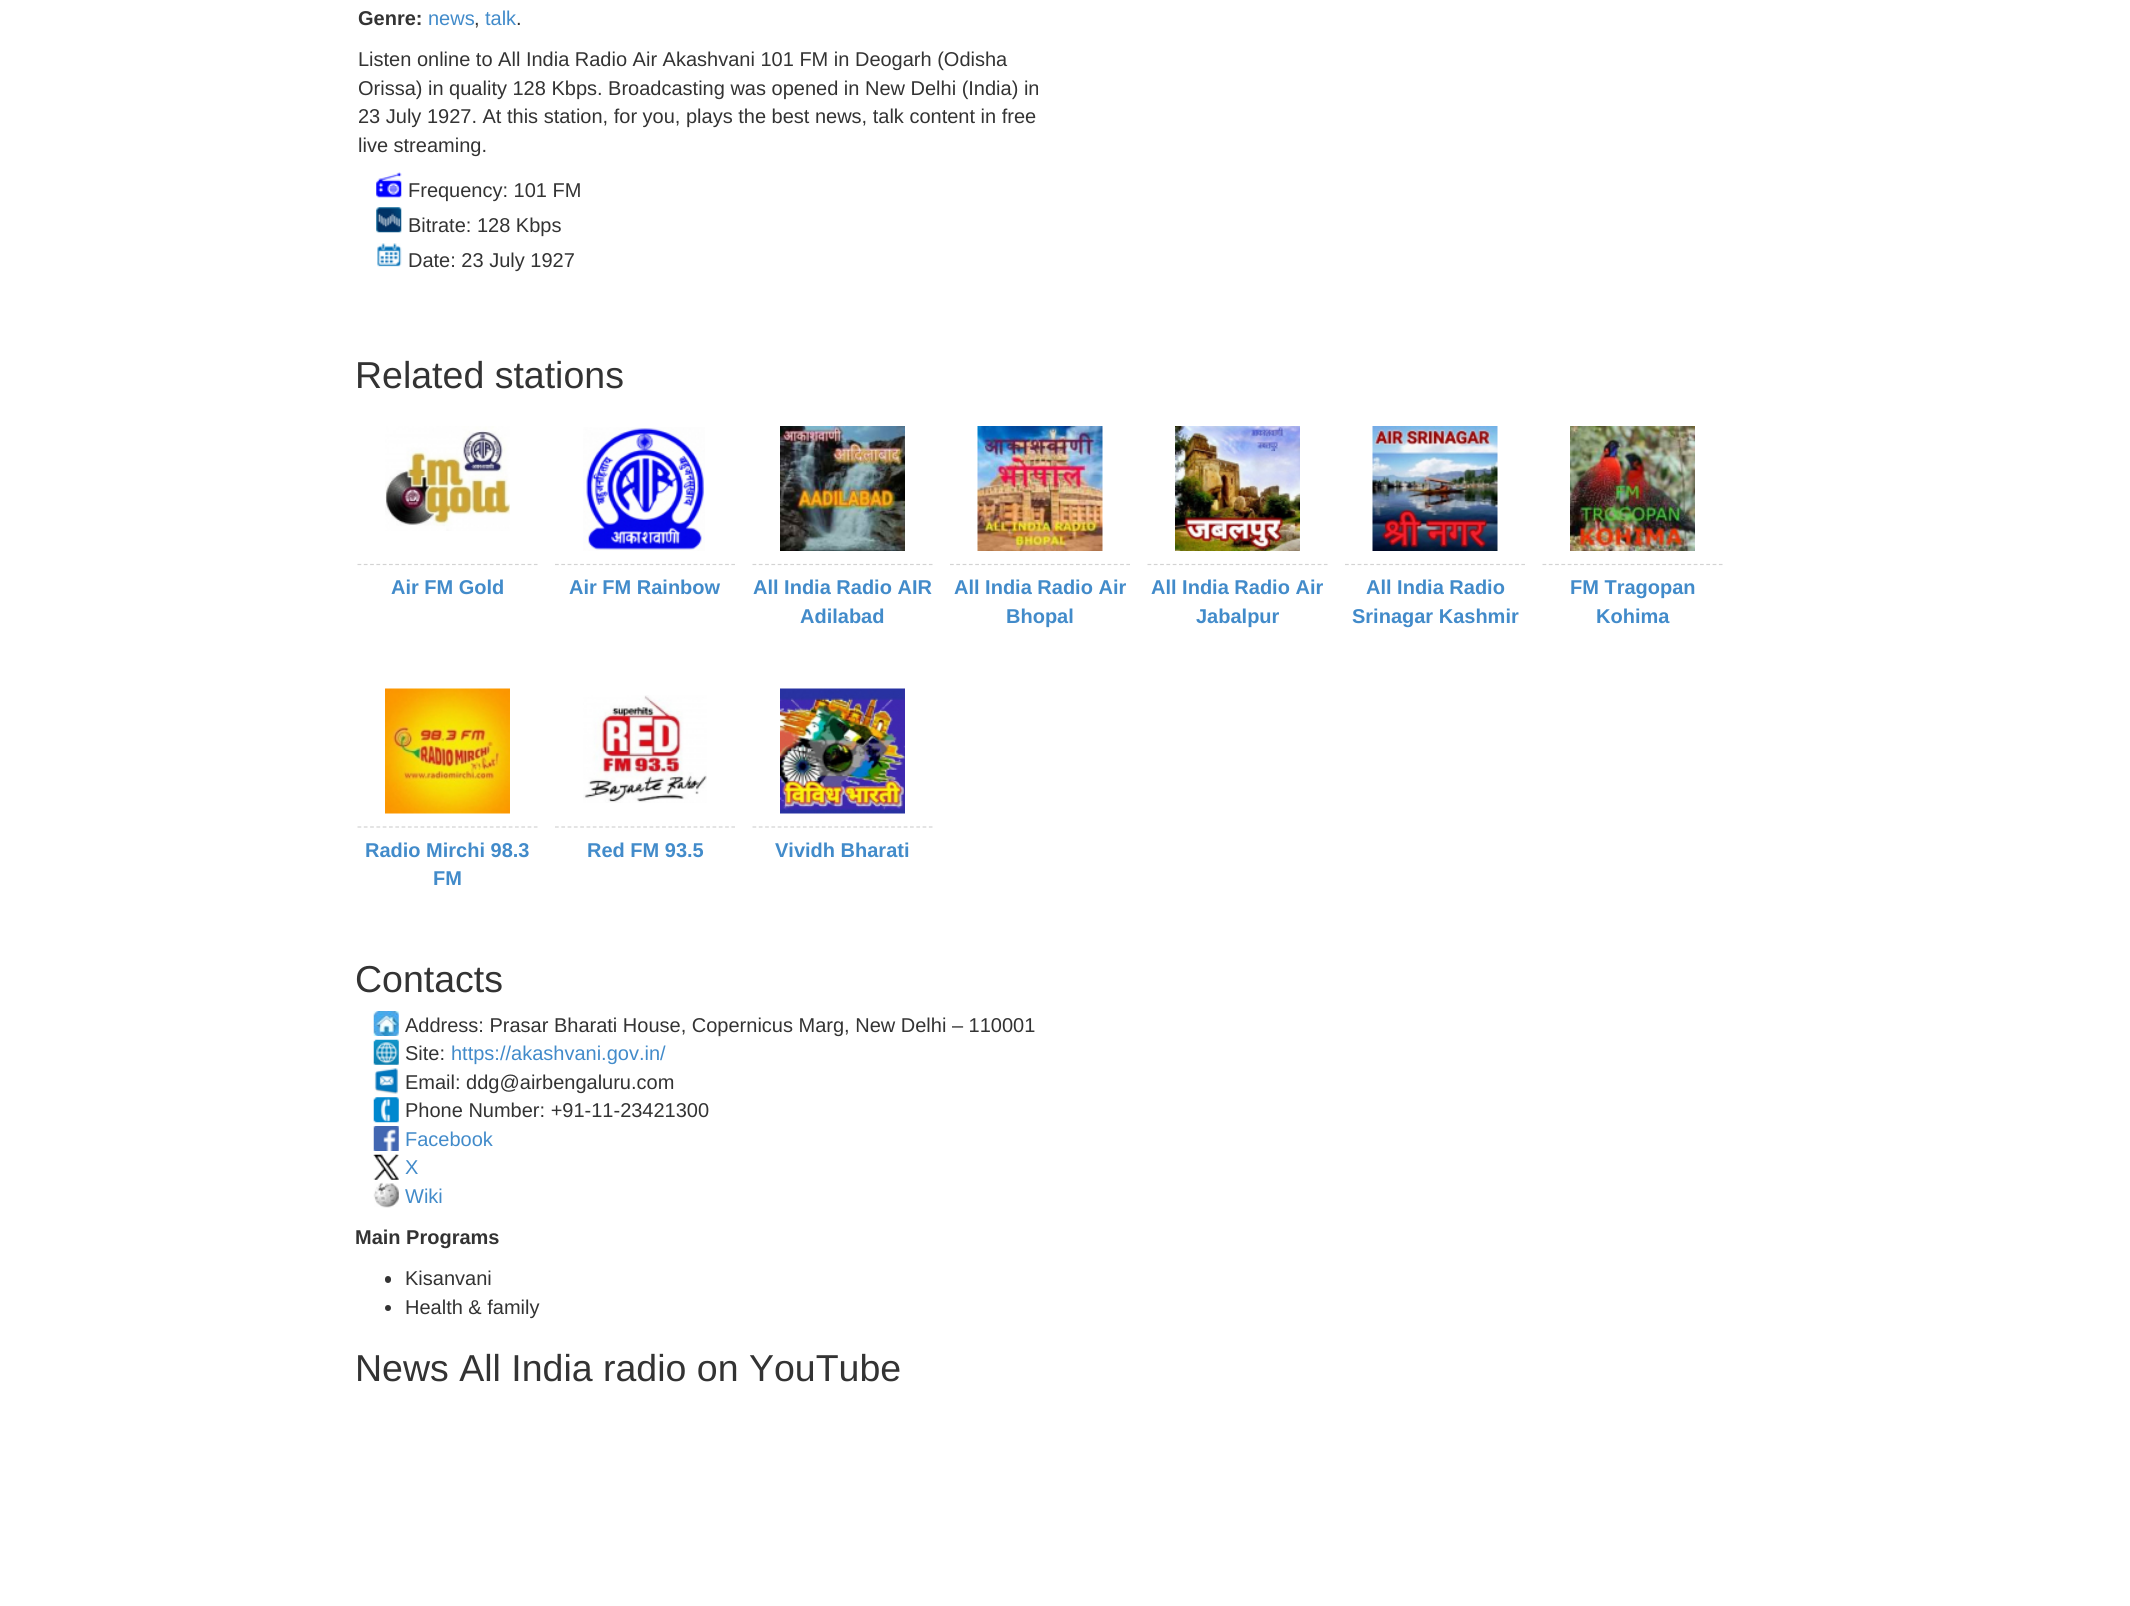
#include <cairo.h>
#include <math.h>
#include <stddef.h>


static void round_rect(cairo_t *cr, double x, double y, double w, double h, double r) {
    cairo_new_sub_path(cr);
    cairo_arc(cr, x + w - r, y + h - r, r, 0, M_PI / 2);
    cairo_arc(cr, x + r, y + h - r, r, M_PI / 2, M_PI);
    cairo_arc(cr, x + r, y + r, r, M_PI, 1.5 * M_PI);
    cairo_arc(cr, x + w - r, y + r, r, 1.5 * M_PI, 2 * M_PI);
    cairo_close_path(cr);
}

static void picture(cairo_t *cr, const char *path, double x, double y, double w, double h) {
    cairo_surface_t *image = cairo_image_surface_create_from_png(path);
    cairo_save(cr);
    cairo_set_source_surface(cr, image, x, y);
    cairo_rectangle(cr, x, y, w, h);
    cairo_fill(cr);
    cairo_restore(cr);
    cairo_surface_destroy(image);
}

int main(void) {
    cairo_surface_t *surface = cairo_image_surface_create(CAIRO_FORMAT_RGB24, 2130, 1606);
    cairo_t *cr = cairo_create(surface);
    cairo_font_options_t *options = cairo_font_options_create();
    cairo_font_options_set_hint_metrics(options, CAIRO_HINT_METRICS_OFF);
    cairo_font_options_set_hint_style(options, CAIRO_HINT_STYLE_NONE);
    cairo_set_font_options(cr, options);
    cairo_set_miter_limit(cr, 4);
    cairo_set_source_rgb(cr, 1, 1, 1);
    cairo_paint(cr);
    cairo_select_font_face(cr, "Liberation Sans", CAIRO_FONT_SLANT_NORMAL, CAIRO_FONT_WEIGHT_BOLD);
    cairo_set_font_size(cr, 20);
    cairo_set_source_rgb(cr, 0.2, 0.2, 0.2);
    cairo_move_to(cr, 358, 25);
    cairo_show_text(cr, "Genre:");
    cairo_select_font_face(cr, "Liberation Sans", CAIRO_FONT_SLANT_NORMAL, CAIRO_FONT_WEIGHT_NORMAL);
    cairo_set_source_rgb(cr, 0.259, 0.545, 0.792);
    cairo_move_to(cr, 428, 25);
    cairo_show_text(cr, "news");
    cairo_set_source_rgb(cr, 0.2, 0.2, 0.2);
    cairo_move_to(cr, 474, 25);
    cairo_show_text(cr, ",");
    cairo_set_source_rgb(cr, 0.259, 0.545, 0.792);
    cairo_move_to(cr, 485, 25);
    cairo_show_text(cr, "talk");
    cairo_set_source_rgb(cr, 0.2, 0.2, 0.2);
    cairo_move_to(cr, 516, 25);
    cairo_show_text(cr, ".");
    cairo_move_to(cr, 358, 66);
    cairo_show_text(cr, "Listen online to All India Radio Air Akashvani 101 FM in Deogarh (Odisha");
    cairo_move_to(cr, 358, 95);
    cairo_show_text(cr, "Orissa) in quality 128 Kbps. Broadcasting was opened in New Delhi (India) in");
    cairo_move_to(cr, 358, 123);
    cairo_show_text(cr, "23 July 1927. At this station, for you, plays the best news, talk content in free");
    cairo_move_to(cr, 358, 152);
    cairo_show_text(cr, "live streaming.");
    picture(cr, "img1.png", 376, 172, 26, 26);
    cairo_move_to(cr, 408, 197);
    cairo_show_text(cr, "Frequency: 101 FM");
    picture(cr, "img2.png", 376, 207, 26, 26);
    cairo_move_to(cr, 408, 232);
    cairo_show_text(cr, "Bitrate: 128 Kbps");
    picture(cr, "img3.png", 377, 243, 25, 24);
    cairo_move_to(cr, 408, 267);
    cairo_show_text(cr, "Date: 23 July 1927");
    cairo_set_font_size(cr, 37.5);
    cairo_move_to(cr, 355, 388);
    cairo_show_text(cr, "Related stations");
    picture(cr, "img4.png", 385, 426, 125, 105);
    cairo_new_path(cr);
    cairo_move_to(cr, 357.5, 564.5);
    cairo_line_to(cr, 537.5, 564.5);
    cairo_set_source_rgb(cr, 0.827, 0.827, 0.827);
    cairo_set_line_width(cr, 1.2);
    cairo_set_dash(cr, (double[]){3.75, 2.55}, 2, 0);
    cairo_stroke(cr);
    cairo_select_font_face(cr, "Liberation Sans", CAIRO_FONT_SLANT_NORMAL, CAIRO_FONT_WEIGHT_BOLD);
    cairo_set_font_size(cr, 20);
    cairo_set_source_rgb(cr, 0.259, 0.545, 0.792);
    cairo_move_to(cr, 391, 594);
    cairo_show_text(cr, "Air FM Gold");
    picture(cr, "img5.png", 583, 427, 122, 124);
    cairo_new_path(cr);
    cairo_move_to(cr, 555, 564.5);
    cairo_line_to(cr, 735, 564.5);
    cairo_set_source_rgb(cr, 0.827, 0.827, 0.827);
    cairo_stroke(cr);
    cairo_set_source_rgb(cr, 0.259, 0.545, 0.792);
    cairo_move_to(cr, 569, 594);
    cairo_show_text(cr, "Air FM Rainbow");
    picture(cr, "img6.png", 780, 426, 125, 125);
    cairo_new_path(cr);
    cairo_move_to(cr, 752.5, 564.5);
    cairo_line_to(cr, 932.5, 564.5);
    cairo_set_source_rgb(cr, 0.827, 0.827, 0.827);
    cairo_stroke(cr);
    cairo_set_source_rgb(cr, 0.259, 0.545, 0.792);
    cairo_move_to(cr, 753, 594);
    cairo_show_text(cr, "All India Radio AIR");
    cairo_move_to(cr, 800, 623);
    cairo_show_text(cr, "Adilabad");
    picture(cr, "img7.png", 977, 426, 126, 125);
    cairo_new_path(cr);
    cairo_move_to(cr, 950, 564.5);
    cairo_line_to(cr, 1130, 564.5);
    cairo_set_source_rgb(cr, 0.827, 0.827, 0.827);
    cairo_stroke(cr);
    cairo_set_source_rgb(cr, 0.259, 0.545, 0.792);
    cairo_move_to(cr, 954, 594);
    cairo_show_text(cr, "All India Radio Air");
    cairo_move_to(cr, 1006, 623);
    cairo_show_text(cr, "Bhopal");
    picture(cr, "img8.png", 1175, 426, 125, 125);
    cairo_new_path(cr);
    cairo_move_to(cr, 1147.5, 564.5);
    cairo_line_to(cr, 1327.5, 564.5);
    cairo_set_source_rgb(cr, 0.827, 0.827, 0.827);
    cairo_stroke(cr);
    cairo_set_source_rgb(cr, 0.259, 0.545, 0.792);
    cairo_move_to(cr, 1151, 594);
    cairo_show_text(cr, "All India Radio Air");
    cairo_move_to(cr, 1196, 623);
    cairo_show_text(cr, "Jabalpur");
    picture(cr, "img9.png", 1372, 426, 126, 125);
    cairo_new_path(cr);
    cairo_move_to(cr, 1345, 564.5);
    cairo_line_to(cr, 1525, 564.5);
    cairo_set_source_rgb(cr, 0.827, 0.827, 0.827);
    cairo_stroke(cr);
    cairo_set_source_rgb(cr, 0.259, 0.545, 0.792);
    cairo_move_to(cr, 1366, 594);
    cairo_show_text(cr, "All India Radio");
    cairo_move_to(cr, 1352, 623);
    cairo_show_text(cr, "Srinagar Kashmir");
    picture(cr, "img10.png", 1570, 426, 125, 125);
    cairo_new_path(cr);
    cairo_move_to(cr, 1542.5, 564.5);
    cairo_line_to(cr, 1722.5, 564.5);
    cairo_set_source_rgb(cr, 0.827, 0.827, 0.827);
    cairo_stroke(cr);
    cairo_set_source_rgb(cr, 0.259, 0.545, 0.792);
    cairo_move_to(cr, 1570, 594);
    cairo_show_text(cr, "FM Tragopan");
    cairo_move_to(cr, 1596, 623);
    cairo_show_text(cr, "Kohima");
    picture(cr, "img11.png", 385, 688, 125, 126);
    cairo_new_path(cr);
    cairo_move_to(cr, 357.5, 827);
    cairo_line_to(cr, 537.5, 827);
    cairo_set_source_rgb(cr, 0.827, 0.827, 0.827);
    cairo_stroke(cr);
    cairo_set_source_rgb(cr, 0.259, 0.545, 0.792);
    cairo_move_to(cr, 365, 857);
    cairo_show_text(cr, "Radio Mirchi 98.3");
    cairo_move_to(cr, 433, 885);
    cairo_show_text(cr, "FM");
    picture(cr, "img12.png", 583, 695, 124, 108);
    cairo_new_path(cr);
    cairo_move_to(cr, 555, 827);
    cairo_line_to(cr, 735, 827);
    cairo_set_source_rgb(cr, 0.827, 0.827, 0.827);
    cairo_stroke(cr);
    cairo_set_source_rgb(cr, 0.259, 0.545, 0.792);
    cairo_move_to(cr, 587, 857);
    cairo_show_text(cr, "Red FM 93.5");
    picture(cr, "img13.png", 780, 688, 125, 126);
    cairo_new_path(cr);
    cairo_move_to(cr, 752.5, 827);
    cairo_line_to(cr, 932.5, 827);
    cairo_set_source_rgb(cr, 0.827, 0.827, 0.827);
    cairo_stroke(cr);
    cairo_set_source_rgb(cr, 0.259, 0.545, 0.792);
    cairo_move_to(cr, 775, 857);
    cairo_show_text(cr, "Vividh Bharati");
    cairo_select_font_face(cr, "Liberation Sans", CAIRO_FONT_SLANT_NORMAL, CAIRO_FONT_WEIGHT_NORMAL);
    cairo_set_font_size(cr, 37.5);
    cairo_set_source_rgb(cr, 0.2, 0.2, 0.2);
    cairo_move_to(cr, 355, 992);
    cairo_show_text(cr, "Contacts");
    picture(cr, "img14.png", 373, 1011, 26, 25);
    cairo_set_font_size(cr, 20);
    cairo_move_to(cr, 405, 1032);
    cairo_show_text(cr, "Address: Prasar Bharati House, Copernicus Marg, New Delhi – 110001");
    picture(cr, "img15.png", 373, 1039, 26, 26);
    cairo_move_to(cr, 405, 1060);
    cairo_show_text(cr, "Site:");
    cairo_set_source_rgb(cr, 0.259, 0.545, 0.792);
    cairo_move_to(cr, 451, 1060);
    cairo_show_text(cr, "https://akashvani.gov.in/");
    picture(cr, "img16.png", 374, 1068, 25, 26);
    cairo_set_source_rgb(cr, 0.2, 0.2, 0.2);
    cairo_move_to(cr, 405, 1089);
    cairo_show_text(cr, "Email: ddg@airbengaluru.com");
    picture(cr, "img17.png", 373, 1097, 26, 26);
    cairo_move_to(cr, 405, 1117);
    cairo_show_text(cr, "Phone Number: +91-11-23421300");
    picture(cr, "img18.png", 373, 1126, 26, 25);
    cairo_set_source_rgb(cr, 0.259, 0.545, 0.792);
    cairo_move_to(cr, 405, 1146);
    cairo_show_text(cr, "Facebook");
    picture(cr, "img19.png", 373, 1154, 26, 26);
    cairo_move_to(cr, 405, 1174);
    cairo_show_text(cr, "X");
    picture(cr, "img20.png", 373, 1182, 26, 26);
    cairo_move_to(cr, 405, 1203);
    cairo_show_text(cr, "Wiki");
    cairo_select_font_face(cr, "Liberation Sans", CAIRO_FONT_SLANT_NORMAL, CAIRO_FONT_WEIGHT_BOLD);
    cairo_set_source_rgb(cr, 0.2, 0.2, 0.2);
    cairo_move_to(cr, 355, 1244);
    cairo_show_text(cr, "Main Programs");
    round_rect(cr, 385, 1276, 6, 7, 3);
    cairo_fill(cr);
    cairo_select_font_face(cr, "Liberation Sans", CAIRO_FONT_SLANT_NORMAL, CAIRO_FONT_WEIGHT_NORMAL);
    cairo_move_to(cr, 405, 1285);
    cairo_show_text(cr, "Kisanvani");
    cairo_new_path(cr);
    cairo_arc(cr, 388, 1308, 3, 0, 2 * M_PI);
    cairo_fill(cr);
    cairo_move_to(cr, 405, 1314);
    cairo_show_text(cr, "Health & family");
    cairo_set_font_size(cr, 37.5);
    cairo_move_to(cr, 355, 1381);
    cairo_show_text(cr, "News All India radio on YouTube");
    cairo_surface_write_to_png(surface, "page.png");
    cairo_font_options_destroy(options);
    cairo_destroy(cr);
    cairo_surface_destroy(surface);
    return 0;
}
